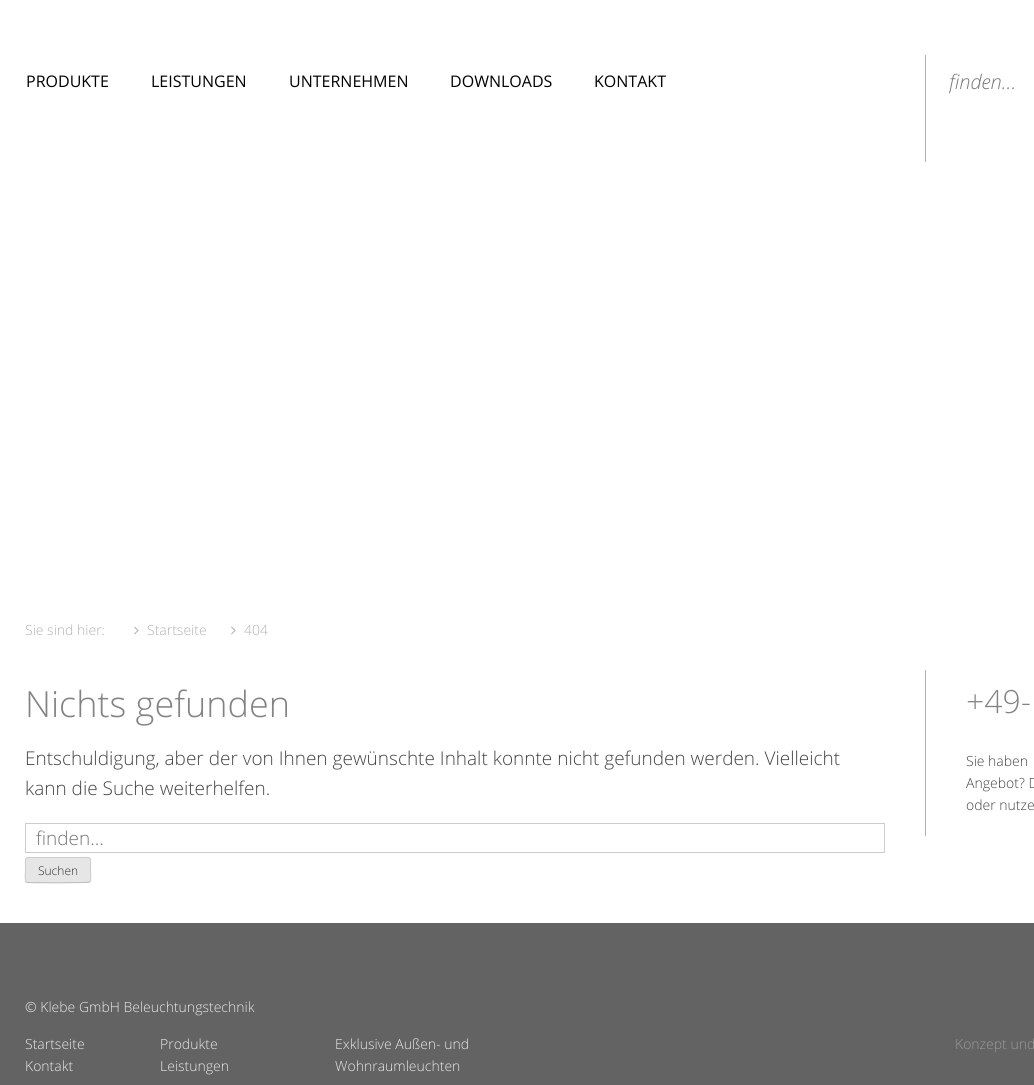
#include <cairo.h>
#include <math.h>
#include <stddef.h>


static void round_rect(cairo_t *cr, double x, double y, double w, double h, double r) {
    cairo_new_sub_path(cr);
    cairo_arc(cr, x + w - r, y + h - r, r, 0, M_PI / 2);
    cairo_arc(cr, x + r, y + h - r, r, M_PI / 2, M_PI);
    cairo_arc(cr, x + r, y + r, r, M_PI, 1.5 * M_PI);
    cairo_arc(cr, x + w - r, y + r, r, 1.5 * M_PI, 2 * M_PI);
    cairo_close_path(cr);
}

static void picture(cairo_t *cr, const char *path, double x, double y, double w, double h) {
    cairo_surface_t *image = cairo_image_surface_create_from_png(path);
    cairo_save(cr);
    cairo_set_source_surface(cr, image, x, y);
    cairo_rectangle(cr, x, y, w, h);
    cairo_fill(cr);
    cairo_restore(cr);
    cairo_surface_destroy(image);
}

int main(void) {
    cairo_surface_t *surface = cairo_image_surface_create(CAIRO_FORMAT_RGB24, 1034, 1085);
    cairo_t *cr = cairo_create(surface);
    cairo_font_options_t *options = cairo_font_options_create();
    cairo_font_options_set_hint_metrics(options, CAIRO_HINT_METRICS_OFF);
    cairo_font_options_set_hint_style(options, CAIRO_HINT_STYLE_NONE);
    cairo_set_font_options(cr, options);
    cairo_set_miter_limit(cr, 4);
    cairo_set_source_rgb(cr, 1, 1, 1);
    cairo_paint(cr);
    cairo_select_font_face(cr, "Open Sans", CAIRO_FONT_SLANT_NORMAL, CAIRO_FONT_WEIGHT_NORMAL);
    cairo_set_font_size(cr, 16);
    cairo_set_source_rgb(cr, 0, 0, 0);
    cairo_move_to(cr, 26, 87);
    cairo_show_text(cr, "PRODUKTE");
    cairo_move_to(cr, 151, 87);
    cairo_show_text(cr, "LEISTUNGEN");
    cairo_move_to(cr, 289, 87);
    cairo_show_text(cr, "UNTERNEHMEN");
    cairo_move_to(cr, 450, 87);
    cairo_show_text(cr, "DOWNLOADS");
    cairo_move_to(cr, 594, 87);
    cairo_show_text(cr, "KONTAKT");
    cairo_set_source_rgb(cr, 0.698, 0.698, 0.698);
    cairo_rectangle(cr, 925, 55, 1, 107);
    cairo_fill(cr);
    cairo_save(cr);
    cairo_rectangle(cr, 949, 68, 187, 27);
    cairo_clip(cr);
    cairo_select_font_face(cr, "Open Sans Light", CAIRO_FONT_SLANT_ITALIC, CAIRO_FONT_WEIGHT_NORMAL);
    cairo_set_font_size(cr, 20);
    cairo_set_source_rgb(cr, 0.459, 0.459, 0.459);
    cairo_move_to(cr, 949, 89);
    cairo_show_text(cr, "finden…");
    cairo_restore(cr);
    cairo_select_font_face(cr, "Open Sans Light", CAIRO_FONT_SLANT_NORMAL, CAIRO_FONT_WEIGHT_NORMAL);
    cairo_set_font_size(cr, 14);
    cairo_move_to(cr, 25, 635);
    cairo_show_text(cr, "Sie sind hier:");
    picture(cr, "img1.png", 134, 626, 5, 9);
    cairo_move_to(cr, 147, 635);
    cairo_show_text(cr, "Startseite");
    picture(cr, "img1.png", 231, 626, 5, 9);
    cairo_move_to(cr, 244, 635);
    cairo_show_text(cr, "404");
    cairo_set_font_size(cr, 36);
    cairo_set_source_rgb(cr, 0.514, 0.514, 0.514);
    cairo_move_to(cr, 25, 717);
    cairo_show_text(cr, "Nichts gefunden");
    cairo_set_font_size(cr, 19);
    cairo_set_source_rgb(cr, 0.267, 0.267, 0.267);
    cairo_move_to(cr, 25, 765);
    cairo_show_text(cr, "Entschuldigung, aber der von Ihnen gewünschte Inhalt konnte nicht gefunden werden. Vielleicht");
    cairo_move_to(cr, 25, 795);
    cairo_show_text(cr, "kann die Suche weiterhelfen.");
    cairo_rectangle(cr, 25.5, 823.5, 859, 29);
    cairo_set_source_rgb(cr, 0.8, 0.8, 0.8);
    cairo_set_line_width(cr, 1);
    cairo_stroke(cr);
    cairo_set_source_rgb(cr, 0.459, 0.459, 0.459);
    cairo_move_to(cr, 36, 845);
    cairo_show_text(cr, "finden…");
    cairo_set_source_rgb(cr, 0.902, 0.902, 0.902);
    round_rect(cr, 25, 857, 66, 26, 3);
    cairo_fill(cr);
    cairo_new_path(cr);
    cairo_move_to(cr, 90, 882);
    cairo_line_to(cr, 89.5, 882);
    cairo_curve_to(cr, 88.5, 883, 33, 883, 28, 882.5);
    cairo_line_to(cr, 26, 882);
    cairo_set_source_rgb(cr, 0.733, 0.733, 0.733);
    cairo_stroke(cr);
    cairo_new_path(cr);
    cairo_move_to(cr, 26, 882);
    cairo_curve_to(cr, 24.5, 880, 25.5, 872.5, 25.5, 870);
    cairo_curve_to(cr, 25.5, 855.5, 23, 857.5, 38, 857.5);
    cairo_line_to(cr, 78, 857.5);
    cairo_curve_to(cr, 93, 857.5, 90.5, 855.5, 90.5, 870);
    cairo_curve_to(cr, 90.5, 872.5, 91.5, 880, 90, 882);
    cairo_set_source_rgb(cr, 0.8, 0.8, 0.8);
    cairo_stroke(cr);
    cairo_set_font_size(cr, 12);
    cairo_set_source_rgb(cr, 0.18, 0.18, 0.18);
    cairo_move_to(cr, 38, 875);
    cairo_show_text(cr, "Suchen");
    cairo_set_source_rgb(cr, 0.698, 0.698, 0.698);
    cairo_rectangle(cr, 925, 670, 1, 166);
    cairo_fill(cr);
    cairo_set_font_size(cr, 32);
    cairo_set_source_rgb(cr, 0.514, 0.514, 0.514);
    cairo_move_to(cr, 966, 713);
    cairo_show_text(cr, "+49-");
    cairo_set_font_size(cr, 14);
    cairo_set_source_rgb(cr, 0.267, 0.267, 0.267);
    cairo_move_to(cr, 966, 766);
    cairo_show_text(cr, "Sie haben");
    cairo_move_to(cr, 966, 788);
    cairo_show_text(cr, "Angebot? D");
    cairo_move_to(cr, 966, 810);
    cairo_show_text(cr, "oder nutze");
    cairo_set_source_rgb(cr, 0.388, 0.388, 0.388);
    cairo_rectangle(cr, 0, 923, 1034, 162);
    cairo_fill(cr);
    cairo_set_source_rgb(cr, 0.914, 0.914, 0.914);
    cairo_move_to(cr, 25, 1012);
    cairo_show_text(cr, "© Klebe GmbH Beleuchtungstechnik");
    cairo_move_to(cr, 25, 1049);
    cairo_show_text(cr, "Startseite");
    cairo_move_to(cr, 160, 1049);
    cairo_show_text(cr, "Produkte");
    cairo_move_to(cr, 25, 1071);
    cairo_show_text(cr, "Kontakt");
    cairo_move_to(cr, 160, 1071);
    cairo_show_text(cr, "Leistungen");
    cairo_move_to(cr, 335, 1049);
    cairo_show_text(cr, "Exklusive Außen- und");
    cairo_move_to(cr, 335, 1071);
    cairo_show_text(cr, "Wohnraumleuchten");
    cairo_set_source_rgb(cr, 0.6, 0.6, 0.6);
    cairo_move_to(cr, 955, 1049);
    cairo_show_text(cr, "Konzept und");
    cairo_surface_write_to_png(surface, "page.png");
    cairo_font_options_destroy(options);
    cairo_destroy(cr);
    cairo_surface_destroy(surface);
    return 0;
}
